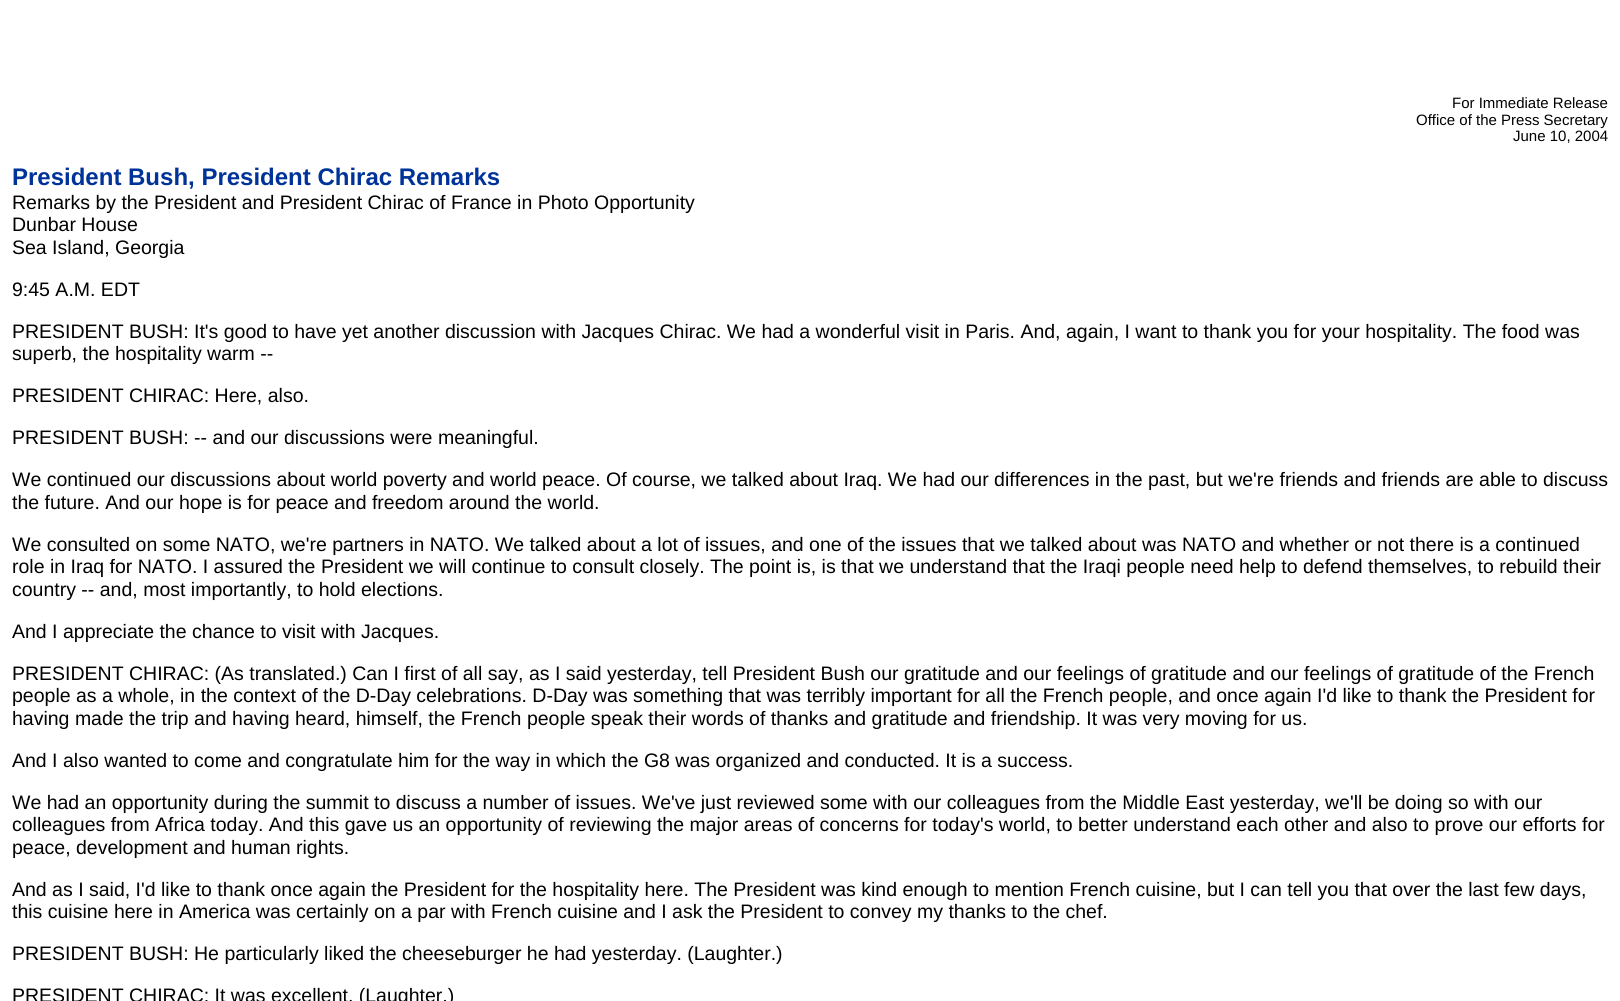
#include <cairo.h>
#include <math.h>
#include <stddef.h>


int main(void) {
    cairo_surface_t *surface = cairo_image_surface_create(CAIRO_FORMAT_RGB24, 1620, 1001);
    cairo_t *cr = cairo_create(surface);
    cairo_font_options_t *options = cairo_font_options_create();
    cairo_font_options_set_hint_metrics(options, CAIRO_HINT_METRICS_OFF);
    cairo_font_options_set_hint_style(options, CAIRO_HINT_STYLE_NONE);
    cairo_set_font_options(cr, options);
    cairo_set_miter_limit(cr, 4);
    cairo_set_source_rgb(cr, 1, 1, 1);
    cairo_paint(cr);
    cairo_select_font_face(cr, "Liberation Sans", CAIRO_FONT_SLANT_NORMAL, CAIRO_FONT_WEIGHT_NORMAL);
    cairo_set_font_size(cr, 15);
    cairo_set_source_rgb(cr, 0, 0, 0);
    cairo_move_to(cr, 1452, 108);
    cairo_show_text(cr, "For Immediate Release");
    cairo_move_to(cr, 1416, 125);
    cairo_show_text(cr, "Office of the Press Secretary");
    cairo_move_to(cr, 1513, 141);
    cairo_show_text(cr, "June 10, 2004");
    cairo_select_font_face(cr, "Liberation Sans", CAIRO_FONT_SLANT_NORMAL, CAIRO_FONT_WEIGHT_BOLD);
    cairo_set_font_size(cr, 24);
    cairo_set_source_rgb(cr, 0, 0.2, 0.6);
    cairo_move_to(cr, 12, 185);
    cairo_show_text(cr, "President Bush, President Chirac Remarks");
    cairo_select_font_face(cr, "Liberation Sans", CAIRO_FONT_SLANT_NORMAL, CAIRO_FONT_WEIGHT_NORMAL);
    cairo_set_font_size(cr, 19.5);
    cairo_set_source_rgb(cr, 0, 0, 0);
    cairo_move_to(cr, 12, 209);
    cairo_show_text(cr, "Remarks by the President and President Chirac of France in Photo Opportunity");
    cairo_move_to(cr, 12, 231);
    cairo_show_text(cr, "Dunbar House");
    cairo_move_to(cr, 12, 254);
    cairo_show_text(cr, "Sea Island, Georgia");
    cairo_move_to(cr, 12, 296);
    cairo_show_text(cr, "9:45 A.M. EDT");
    cairo_move_to(cr, 12, 338);
    cairo_show_text(cr, "PRESIDENT BUSH: It's good to have yet another discussion with Jacques Chirac. We had a wonderful visit in Paris. And, again, I want to thank you for your hospitality. The food was");
    cairo_move_to(cr, 12, 360);
    cairo_show_text(cr, "superb, the hospitality warm --");
    cairo_move_to(cr, 12, 402);
    cairo_show_text(cr, "PRESIDENT CHIRAC: Here, also.");
    cairo_move_to(cr, 12, 444);
    cairo_show_text(cr, "PRESIDENT BUSH: -- and our discussions were meaningful.");
    cairo_move_to(cr, 12, 486);
    cairo_show_text(cr, "We continued our discussions about world poverty and world peace. Of course, we talked about Iraq. We had our differences in the past, but we're friends and friends are able to discuss");
    cairo_move_to(cr, 12, 509);
    cairo_show_text(cr, "the future. And our hope is for peace and freedom around the world.");
    cairo_move_to(cr, 12, 551);
    cairo_show_text(cr, "We consulted on some NATO, we're partners in NATO. We talked about a lot of issues, and one of the issues that we talked about was NATO and whether or not there is a continued");
    cairo_move_to(cr, 12, 573);
    cairo_show_text(cr, "role in Iraq for NATO. I assured the President we will continue to consult closely. The point is, is that we understand that the Iraqi people need help to defend themselves, to rebuild their");
    cairo_move_to(cr, 12, 596);
    cairo_show_text(cr, "country -- and, most importantly, to hold elections.");
    cairo_move_to(cr, 12, 638);
    cairo_show_text(cr, "And I appreciate the chance to visit with Jacques.");
    cairo_move_to(cr, 12, 680);
    cairo_show_text(cr, "PRESIDENT CHIRAC: (As translated.) Can I first of all say, as I said yesterday, tell President Bush our gratitude and our feelings of gratitude and our feelings of gratitude of the French");
    cairo_move_to(cr, 12, 702);
    cairo_show_text(cr, "people as a whole, in the context of the D-Day celebrations. D-Day was something that was terribly important for all the French people, and once again I'd like to thank the President for");
    cairo_move_to(cr, 12, 725);
    cairo_show_text(cr, "having made the trip and having heard, himself, the French people speak their words of thanks and gratitude and friendship. It was very moving for us.");
    cairo_move_to(cr, 12, 767);
    cairo_show_text(cr, "And I also wanted to come and congratulate him for the way in which the G8 was organized and conducted. It is a success.");
    cairo_move_to(cr, 12, 809);
    cairo_show_text(cr, "We had an opportunity during the summit to discuss a number of issues. We've just reviewed some with our colleagues from the Middle East yesterday, we'll be doing so with our");
    cairo_move_to(cr, 12, 831);
    cairo_show_text(cr, "colleagues from Africa today. And this gave us an opportunity of reviewing the major areas of concerns for today's world, to better understand each other and also to prove our efforts for");
    cairo_move_to(cr, 12, 854);
    cairo_show_text(cr, "peace, development and human rights.");
    cairo_move_to(cr, 12, 896);
    cairo_show_text(cr, "And as I said, I'd like to thank once again the President for the hospitality here. The President was kind enough to mention French cuisine, but I can tell you that over the last few days,");
    cairo_move_to(cr, 12, 918);
    cairo_show_text(cr, "this cuisine here in America was certainly on a par with French cuisine and I ask the President to convey my thanks to the chef.");
    cairo_move_to(cr, 12, 960);
    cairo_show_text(cr, "PRESIDENT BUSH: He particularly liked the cheeseburger he had yesterday. (Laughter.)");
    cairo_move_to(cr, 12, 1002);
    cairo_show_text(cr, "PRESIDENT CHIRAC: It was excellent. (Laughter.)");
    cairo_surface_write_to_png(surface, "page.png");
    cairo_font_options_destroy(options);
    cairo_destroy(cr);
    cairo_surface_destroy(surface);
    return 0;
}
